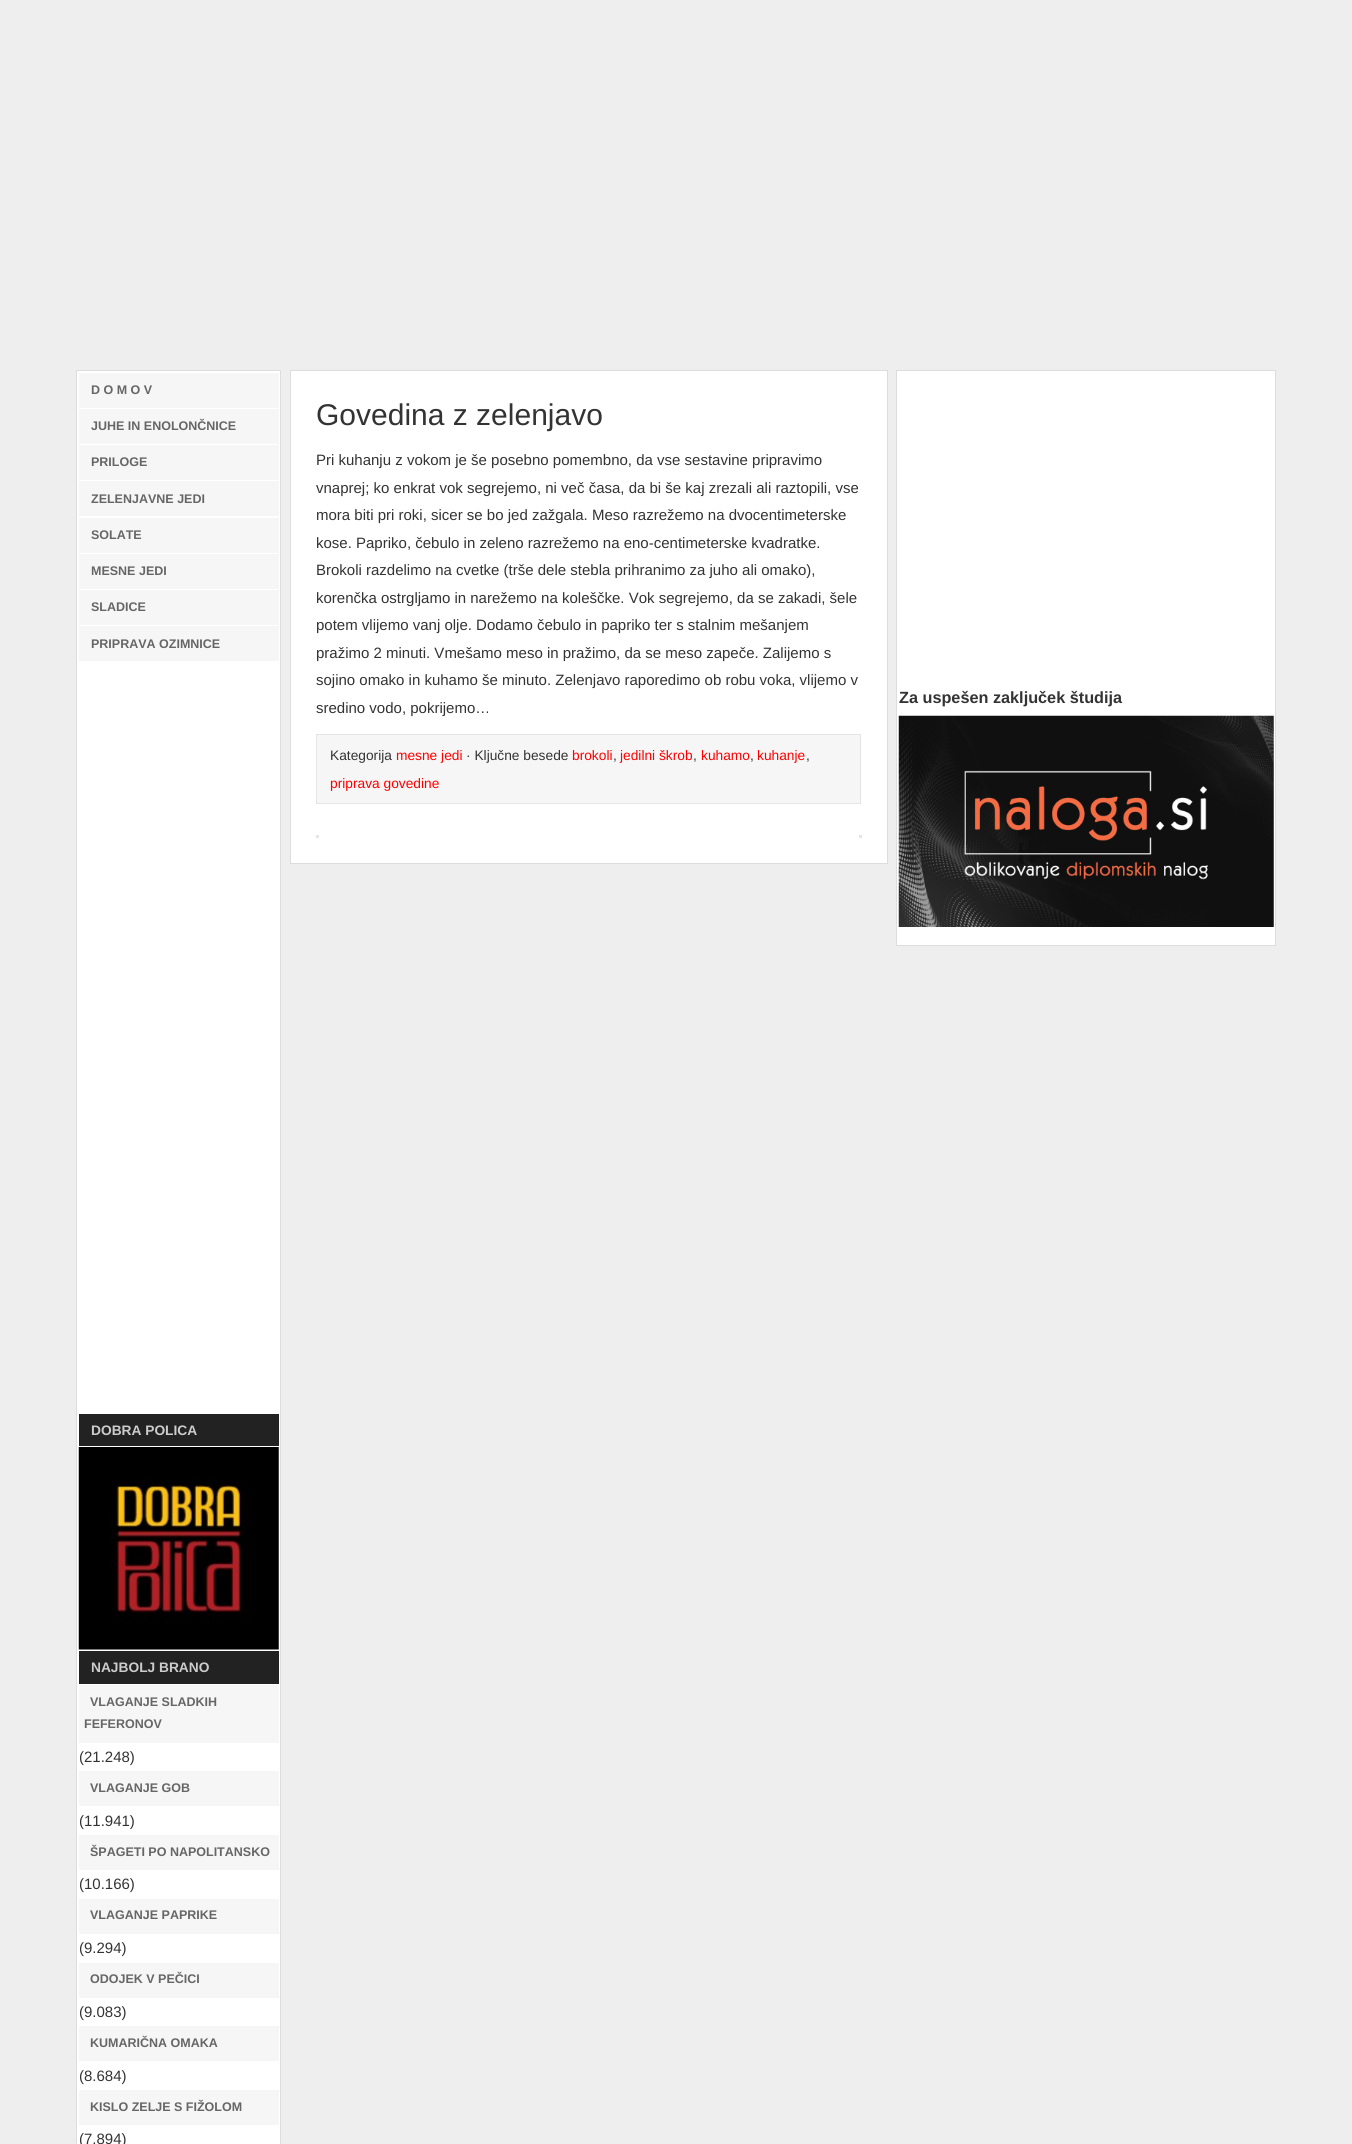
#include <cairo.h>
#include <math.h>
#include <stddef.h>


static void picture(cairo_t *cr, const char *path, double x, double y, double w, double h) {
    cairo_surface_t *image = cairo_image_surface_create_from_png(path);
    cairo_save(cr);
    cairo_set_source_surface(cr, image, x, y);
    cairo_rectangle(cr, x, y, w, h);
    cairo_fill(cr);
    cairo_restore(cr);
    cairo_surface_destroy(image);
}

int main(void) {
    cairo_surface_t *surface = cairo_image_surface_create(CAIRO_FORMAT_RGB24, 1352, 2144);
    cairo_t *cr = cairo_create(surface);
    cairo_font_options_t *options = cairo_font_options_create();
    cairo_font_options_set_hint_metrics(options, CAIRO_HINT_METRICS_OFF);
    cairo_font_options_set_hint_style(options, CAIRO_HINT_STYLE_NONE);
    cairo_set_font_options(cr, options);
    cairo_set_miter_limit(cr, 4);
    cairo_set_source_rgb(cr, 0.933, 0.933, 0.933);
    cairo_paint(cr);
    cairo_set_source_rgb(cr, 1, 1, 1);
    cairo_rectangle(cr, 76.5, 370.5, 204, 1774);
    cairo_fill_preserve(cr);
    cairo_set_source_rgb(cr, 0.867, 0.867, 0.867);
    cairo_set_line_width(cr, 1);
    cairo_stroke(cr);
    cairo_set_source_rgb(cr, 0.961, 0.961, 0.961);
    cairo_rectangle(cr, 79, 373, 200, 35);
    cairo_fill(cr);
    cairo_select_font_face(cr, "Liberation Sans", CAIRO_FONT_SLANT_NORMAL, CAIRO_FONT_WEIGHT_BOLD);
    cairo_set_font_size(cr, 12.5);
    cairo_set_source_rgb(cr, 0.4, 0.4, 0.4);
    cairo_move_to(cr, 91, 394);
    cairo_show_text(cr, "D O M O V");
    cairo_set_source_rgb(cr, 0.961, 0.961, 0.961);
    cairo_rectangle(cr, 79, 409, 200, 35);
    cairo_fill(cr);
    cairo_set_source_rgb(cr, 0.4, 0.4, 0.4);
    cairo_move_to(cr, 91, 430);
    cairo_show_text(cr, "JUHE IN ENOLONČNICE");
    cairo_set_source_rgb(cr, 0.961, 0.961, 0.961);
    cairo_rectangle(cr, 79, 445, 200, 35);
    cairo_fill(cr);
    cairo_set_source_rgb(cr, 0.4, 0.4, 0.4);
    cairo_move_to(cr, 91, 466);
    cairo_show_text(cr, "PRILOGE");
    cairo_set_source_rgb(cr, 0.961, 0.961, 0.961);
    cairo_rectangle(cr, 79, 481, 200, 35);
    cairo_fill(cr);
    cairo_set_source_rgb(cr, 0.4, 0.4, 0.4);
    cairo_move_to(cr, 91, 503);
    cairo_show_text(cr, "ZELENJAVNE JEDI");
    cairo_set_source_rgb(cr, 0.961, 0.961, 0.961);
    cairo_rectangle(cr, 79, 518, 200, 35);
    cairo_fill(cr);
    cairo_set_source_rgb(cr, 0.4, 0.4, 0.4);
    cairo_move_to(cr, 91, 539);
    cairo_show_text(cr, "SOLATE");
    cairo_set_source_rgb(cr, 0.961, 0.961, 0.961);
    cairo_rectangle(cr, 79, 554, 200, 35);
    cairo_fill(cr);
    cairo_set_source_rgb(cr, 0.4, 0.4, 0.4);
    cairo_move_to(cr, 91, 575);
    cairo_show_text(cr, "MESNE JEDI");
    cairo_set_source_rgb(cr, 0.961, 0.961, 0.961);
    cairo_rectangle(cr, 79, 590, 200, 35);
    cairo_fill(cr);
    cairo_set_source_rgb(cr, 0.4, 0.4, 0.4);
    cairo_move_to(cr, 91, 611);
    cairo_show_text(cr, "SLADICE");
    cairo_set_source_rgb(cr, 0.961, 0.961, 0.961);
    cairo_rectangle(cr, 79, 626, 200, 35);
    cairo_fill(cr);
    cairo_set_source_rgb(cr, 0.4, 0.4, 0.4);
    cairo_move_to(cr, 91, 648);
    cairo_show_text(cr, "PRIPRAVA OZIMNICE");
    cairo_set_source_rgb(cr, 0.133, 0.133, 0.133);
    cairo_rectangle(cr, 79, 1414, 200, 32);
    cairo_fill(cr);
    cairo_set_font_size(cr, 13.75);
    cairo_set_source_rgb(cr, 0.8, 0.8, 0.8);
    cairo_move_to(cr, 91, 1435);
    cairo_show_text(cr, "DOBRA POLICA");
    picture(cr, "img1.png", 78, 1447, 201, 203);
    cairo_set_source_rgb(cr, 0.133, 0.133, 0.133);
    cairo_rectangle(cr, 79, 1651, 200, 33);
    cairo_fill(cr);
    cairo_set_source_rgb(cr, 0.8, 0.8, 0.8);
    cairo_move_to(cr, 91, 1672);
    cairo_show_text(cr, "NAJBOLJ BRANO");
    cairo_set_source_rgb(cr, 0.961, 0.961, 0.961);
    cairo_rectangle(cr, 79, 1685, 200, 58);
    cairo_fill(cr);
    cairo_set_font_size(cr, 12.5);
    cairo_set_source_rgb(cr, 0.4, 0.4, 0.4);
    cairo_move_to(cr, 90, 1706);
    cairo_show_text(cr, "VLAGANJE SLADKIH");
    cairo_move_to(cr, 84, 1728);
    cairo_show_text(cr, "FEFERONOV");
    cairo_select_font_face(cr, "Liberation Sans", CAIRO_FONT_SLANT_NORMAL, CAIRO_FONT_WEIGHT_NORMAL);
    cairo_set_font_size(cr, 15);
    cairo_set_source_rgb(cr, 0.2, 0.2, 0.2);
    cairo_move_to(cr, 79, 1762);
    cairo_show_text(cr, "(21.248)");
    cairo_set_source_rgb(cr, 0.961, 0.961, 0.961);
    cairo_rectangle(cr, 79, 1771, 200, 35);
    cairo_fill(cr);
    cairo_select_font_face(cr, "Liberation Sans", CAIRO_FONT_SLANT_NORMAL, CAIRO_FONT_WEIGHT_BOLD);
    cairo_set_font_size(cr, 12.5);
    cairo_set_source_rgb(cr, 0.4, 0.4, 0.4);
    cairo_move_to(cr, 90, 1792);
    cairo_show_text(cr, "VLAGANJE GOB");
    cairo_select_font_face(cr, "Liberation Sans", CAIRO_FONT_SLANT_NORMAL, CAIRO_FONT_WEIGHT_NORMAL);
    cairo_set_font_size(cr, 15);
    cairo_set_source_rgb(cr, 0.2, 0.2, 0.2);
    cairo_move_to(cr, 79, 1826);
    cairo_show_text(cr, "(11.941)");
    cairo_set_source_rgb(cr, 0.961, 0.961, 0.961);
    cairo_rectangle(cr, 79, 1835, 200, 35);
    cairo_fill(cr);
    cairo_select_font_face(cr, "Liberation Sans", CAIRO_FONT_SLANT_NORMAL, CAIRO_FONT_WEIGHT_BOLD);
    cairo_set_font_size(cr, 12.5);
    cairo_set_source_rgb(cr, 0.4, 0.4, 0.4);
    cairo_move_to(cr, 90, 1856);
    cairo_show_text(cr, "ŠPAGETI PO NAPOLITANSKO");
    cairo_select_font_face(cr, "Liberation Sans", CAIRO_FONT_SLANT_NORMAL, CAIRO_FONT_WEIGHT_NORMAL);
    cairo_set_font_size(cr, 15);
    cairo_set_source_rgb(cr, 0.2, 0.2, 0.2);
    cairo_move_to(cr, 79, 1889);
    cairo_show_text(cr, "(10.166)");
    cairo_set_source_rgb(cr, 0.961, 0.961, 0.961);
    cairo_rectangle(cr, 79, 1899, 200, 35);
    cairo_fill(cr);
    cairo_select_font_face(cr, "Liberation Sans", CAIRO_FONT_SLANT_NORMAL, CAIRO_FONT_WEIGHT_BOLD);
    cairo_set_font_size(cr, 12.5);
    cairo_set_source_rgb(cr, 0.4, 0.4, 0.4);
    cairo_move_to(cr, 90, 1919);
    cairo_show_text(cr, "VLAGANJE PAPRIKE");
    cairo_select_font_face(cr, "Liberation Sans", CAIRO_FONT_SLANT_NORMAL, CAIRO_FONT_WEIGHT_NORMAL);
    cairo_set_font_size(cr, 15);
    cairo_set_source_rgb(cr, 0.2, 0.2, 0.2);
    cairo_move_to(cr, 79, 1953);
    cairo_show_text(cr, "(9.294)");
    cairo_set_source_rgb(cr, 0.961, 0.961, 0.961);
    cairo_rectangle(cr, 79, 1963, 200, 35);
    cairo_fill(cr);
    cairo_select_font_face(cr, "Liberation Sans", CAIRO_FONT_SLANT_NORMAL, CAIRO_FONT_WEIGHT_BOLD);
    cairo_set_font_size(cr, 12.5);
    cairo_set_source_rgb(cr, 0.4, 0.4, 0.4);
    cairo_move_to(cr, 90, 1983);
    cairo_show_text(cr, "ODOJEK V PEČICI");
    cairo_select_font_face(cr, "Liberation Sans", CAIRO_FONT_SLANT_NORMAL, CAIRO_FONT_WEIGHT_NORMAL);
    cairo_set_font_size(cr, 15);
    cairo_set_source_rgb(cr, 0.2, 0.2, 0.2);
    cairo_move_to(cr, 79, 2017);
    cairo_show_text(cr, "(9.083)");
    cairo_set_source_rgb(cr, 0.961, 0.961, 0.961);
    cairo_rectangle(cr, 79, 2026, 200, 35);
    cairo_fill(cr);
    cairo_select_font_face(cr, "Liberation Sans", CAIRO_FONT_SLANT_NORMAL, CAIRO_FONT_WEIGHT_BOLD);
    cairo_set_font_size(cr, 12.5);
    cairo_set_source_rgb(cr, 0.4, 0.4, 0.4);
    cairo_move_to(cr, 90, 2047);
    cairo_show_text(cr, "KUMARIČNA OMAKA");
    cairo_select_font_face(cr, "Liberation Sans", CAIRO_FONT_SLANT_NORMAL, CAIRO_FONT_WEIGHT_NORMAL);
    cairo_set_font_size(cr, 15);
    cairo_set_source_rgb(cr, 0.2, 0.2, 0.2);
    cairo_move_to(cr, 79, 2081);
    cairo_show_text(cr, "(8.684)");
    cairo_set_source_rgb(cr, 0.961, 0.961, 0.961);
    cairo_rectangle(cr, 79, 2090, 200, 35);
    cairo_fill(cr);
    cairo_select_font_face(cr, "Liberation Sans", CAIRO_FONT_SLANT_NORMAL, CAIRO_FONT_WEIGHT_BOLD);
    cairo_set_font_size(cr, 12.5);
    cairo_set_source_rgb(cr, 0.4, 0.4, 0.4);
    cairo_move_to(cr, 90, 2111);
    cairo_show_text(cr, "KISLO ZELJE S FIŽOLOM");
    cairo_select_font_face(cr, "Liberation Sans", CAIRO_FONT_SLANT_NORMAL, CAIRO_FONT_WEIGHT_NORMAL);
    cairo_set_font_size(cr, 15);
    cairo_set_source_rgb(cr, 0.2, 0.2, 0.2);
    cairo_move_to(cr, 79, 2144);
    cairo_show_text(cr, "(7.894)");
    cairo_set_source_rgb(cr, 1, 1, 1);
    cairo_rectangle(cr, 290.5, 370.5, 597, 493);
    cairo_fill_preserve(cr);
    cairo_set_source_rgb(cr, 0.867, 0.867, 0.867);
    cairo_stroke(cr);
    cairo_set_font_size(cr, 30);
    cairo_set_source_rgb(cr, 0.2, 0.2, 0.2);
    cairo_move_to(cr, 316, 425);
    cairo_show_text(cr, "Govedina z zelenjavo");
    cairo_set_font_size(cr, 15);
    cairo_move_to(cr, 316, 465);
    cairo_show_text(cr, "Pri kuhanju z vokom je še posebno pomembno, da vse sestavine pripravimo");
    cairo_move_to(cr, 316, 493);
    cairo_show_text(cr, "vnaprej; ko enkrat vok segrejemo, ni več časa, da bi še kaj zrezali ali raztopili, vse");
    cairo_move_to(cr, 316, 520);
    cairo_show_text(cr, "mora biti pri roki, sicer se bo jed zažgala. Meso razrežemo na dvocentimeterske");
    cairo_move_to(cr, 316, 548);
    cairo_show_text(cr, "kose. Papriko, čebulo in zeleno razrežemo na eno-centimeterske kvadratke.");
    cairo_move_to(cr, 316, 575);
    cairo_show_text(cr, "Brokoli razdelimo na cvetke (trše dele stebla prihranimo za juho ali omako),");
    cairo_move_to(cr, 316, 603);
    cairo_show_text(cr, "korenčka ostrgljamo in narežemo na koleščke. Vok segrejemo, da se zakadi, šele");
    cairo_move_to(cr, 316, 630);
    cairo_show_text(cr, "potem vlijemo vanj olje. Dodamo čebulo in papriko ter s stalnim mešanjem");
    cairo_move_to(cr, 316, 658);
    cairo_show_text(cr, "pražimo 2 minuti. Vmešamo meso in pražimo, da se meso zapeče. Zalijemo s");
    cairo_move_to(cr, 316, 685);
    cairo_show_text(cr, "sojino omako in kuhamo še minuto. Zelenjavo raporedimo ob robu voka, vlijemo v");
    cairo_move_to(cr, 316, 713);
    cairo_show_text(cr, "sredino vodo, pokrijemo…");
    cairo_set_source_rgb(cr, 0.961, 0.961, 0.961);
    cairo_rectangle(cr, 316.5, 734.5, 544, 69);
    cairo_fill_preserve(cr);
    cairo_set_source_rgb(cr, 0.898, 0.898, 0.898);
    cairo_stroke(cr);
    cairo_set_font_size(cr, 13.75);
    cairo_set_source_rgb(cr, 0.2, 0.2, 0.2);
    cairo_move_to(cr, 330, 760);
    cairo_show_text(cr, "Kategorija");
    cairo_set_source_rgb(cr, 1, 0, 0);
    cairo_move_to(cr, 396, 760);
    cairo_show_text(cr, "mesne jedi");
    cairo_set_source_rgb(cr, 0.2, 0.2, 0.2);
    cairo_move_to(cr, 466, 760);
    cairo_show_text(cr, "· Ključne besede");
    cairo_set_source_rgb(cr, 1, 0, 0);
    cairo_move_to(cr, 572, 760);
    cairo_show_text(cr, "brokoli");
    cairo_set_source_rgb(cr, 0.2, 0.2, 0.2);
    cairo_move_to(cr, 613, 760);
    cairo_show_text(cr, ",");
    cairo_set_source_rgb(cr, 1, 0, 0);
    cairo_move_to(cr, 620, 760);
    cairo_show_text(cr, "jedilni škrob");
    cairo_set_source_rgb(cr, 0.2, 0.2, 0.2);
    cairo_move_to(cr, 693, 760);
    cairo_show_text(cr, ",");
    cairo_set_source_rgb(cr, 1, 0, 0);
    cairo_move_to(cr, 701, 760);
    cairo_show_text(cr, "kuhamo");
    cairo_set_source_rgb(cr, 0.2, 0.2, 0.2);
    cairo_move_to(cr, 750, 760);
    cairo_show_text(cr, ",");
    cairo_set_source_rgb(cr, 1, 0, 0);
    cairo_move_to(cr, 757, 760);
    cairo_show_text(cr, "kuhanje");
    cairo_set_source_rgb(cr, 0.2, 0.2, 0.2);
    cairo_move_to(cr, 806, 760);
    cairo_show_text(cr, ",");
    cairo_set_source_rgb(cr, 1, 0, 0);
    cairo_move_to(cr, 330, 788);
    cairo_show_text(cr, "priprava govedine");
    cairo_set_source_rgb(cr, 0.898, 0.898, 0.898);
    cairo_rectangle(cr, 316, 835, 3, 3);
    cairo_fill(cr);
    cairo_rectangle(cr, 859, 835, 3, 3);
    cairo_fill(cr);
    cairo_set_source_rgb(cr, 1, 1, 1);
    cairo_rectangle(cr, 896.5, 370.5, 379, 575);
    cairo_fill_preserve(cr);
    cairo_set_source_rgb(cr, 0.867, 0.867, 0.867);
    cairo_stroke(cr);
    cairo_select_font_face(cr, "Liberation Sans", CAIRO_FONT_SLANT_NORMAL, CAIRO_FONT_WEIGHT_BOLD);
    cairo_set_font_size(cr, 16.25);
    cairo_set_source_rgb(cr, 0.2, 0.2, 0.2);
    cairo_move_to(cr, 899, 703);
    cairo_show_text(cr, "Za uspešen zaključek študija");
    picture(cr, "img2.png", 898, 715, 376, 212);
    cairo_surface_write_to_png(surface, "page.png");
    cairo_font_options_destroy(options);
    cairo_destroy(cr);
    cairo_surface_destroy(surface);
    return 0;
}
